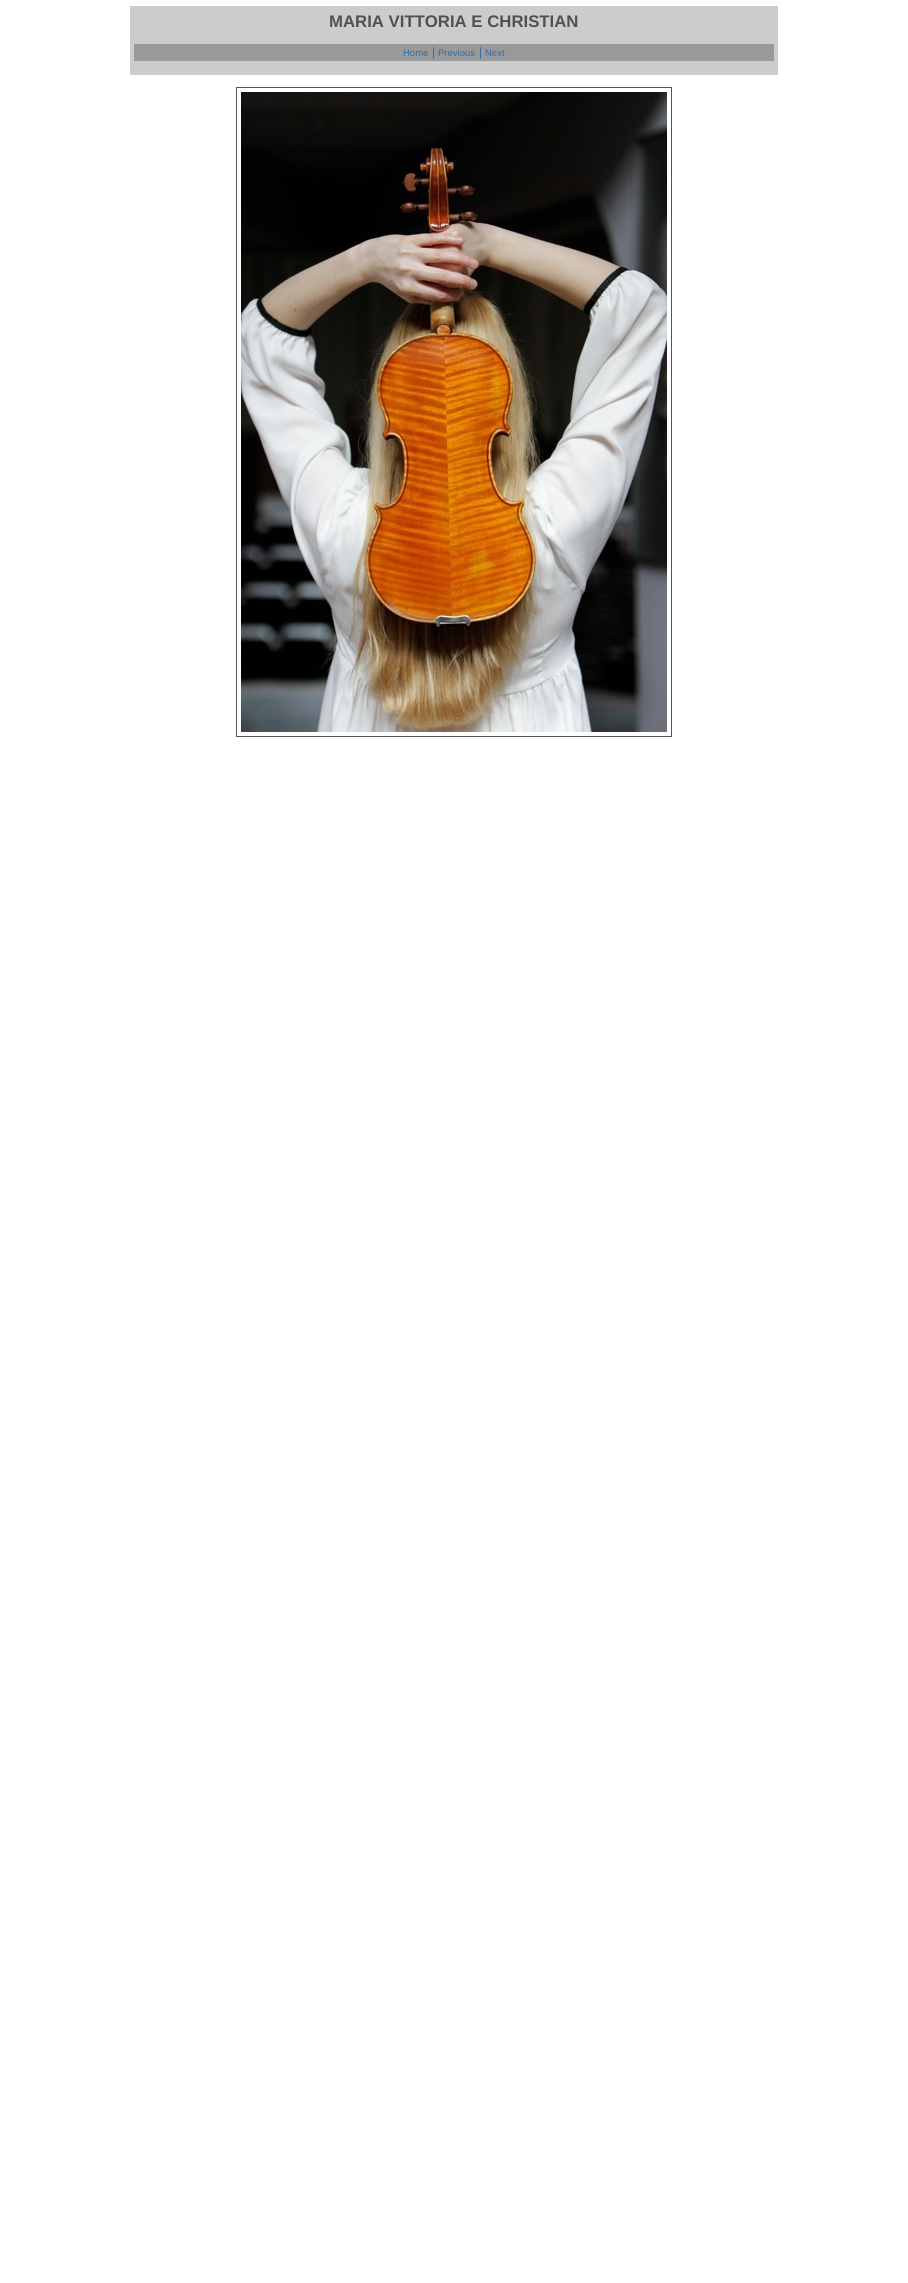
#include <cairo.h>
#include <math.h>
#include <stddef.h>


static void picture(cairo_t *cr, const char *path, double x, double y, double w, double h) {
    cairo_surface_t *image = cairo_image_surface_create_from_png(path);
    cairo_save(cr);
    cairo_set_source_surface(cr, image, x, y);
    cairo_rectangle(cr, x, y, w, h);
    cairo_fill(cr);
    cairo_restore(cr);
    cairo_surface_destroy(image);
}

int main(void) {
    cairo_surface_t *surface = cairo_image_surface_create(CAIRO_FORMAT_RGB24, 908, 2283);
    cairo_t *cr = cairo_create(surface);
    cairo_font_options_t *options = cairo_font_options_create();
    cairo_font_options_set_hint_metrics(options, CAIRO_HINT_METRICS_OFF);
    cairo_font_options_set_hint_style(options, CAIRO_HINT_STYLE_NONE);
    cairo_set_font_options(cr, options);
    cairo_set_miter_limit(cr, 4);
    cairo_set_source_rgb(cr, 1, 1, 1);
    cairo_paint(cr);
    cairo_set_source_rgb(cr, 0.8, 0.8, 0.8);
    cairo_rectangle(cr, 130, 6, 648, 69);
    cairo_fill(cr);
    cairo_select_font_face(cr, "Liberation Sans", CAIRO_FONT_SLANT_NORMAL, CAIRO_FONT_WEIGHT_BOLD);
    cairo_set_font_size(cr, 16.75);
    cairo_set_source_rgb(cr, 0.318, 0.318, 0.318);
    cairo_move_to(cr, 329, 27);
    cairo_show_text(cr, "MARIA VITTORIA E CHRISTIAN");
    cairo_set_source_rgb(cr, 0.6, 0.6, 0.6);
    cairo_rectangle(cr, 134, 44, 640, 17);
    cairo_fill(cr);
    cairo_select_font_face(cr, "Liberation Sans", CAIRO_FONT_SLANT_NORMAL, CAIRO_FONT_WEIGHT_NORMAL);
    cairo_set_font_size(cr, 9.5);
    cairo_set_source_rgb(cr, 0.196, 0.431, 0.631);
    cairo_move_to(cr, 403, 56);
    cairo_show_text(cr, "Home");
    cairo_set_font_size(cr, 12);
    cairo_move_to(cr, 432, 56);
    cairo_show_text(cr, "|");
    cairo_set_font_size(cr, 9.5);
    cairo_move_to(cr, 438, 56);
    cairo_show_text(cr, "Previous");
    cairo_set_font_size(cr, 12);
    cairo_move_to(cr, 479, 56);
    cairo_show_text(cr, "|");
    cairo_set_font_size(cr, 9.5);
    cairo_move_to(cr, 485, 56);
    cairo_show_text(cr, "Next");
    cairo_rectangle(cr, 236.5, 87.5, 435, 649);
    cairo_set_source_rgb(cr, 0.333, 0.333, 0.333);
    cairo_set_line_width(cr, 1);
    cairo_stroke(cr);
    picture(cr, "img1.png", 241, 92, 426, 640);
    cairo_surface_write_to_png(surface, "page.png");
    cairo_font_options_destroy(options);
    cairo_destroy(cr);
    cairo_surface_destroy(surface);
    return 0;
}
